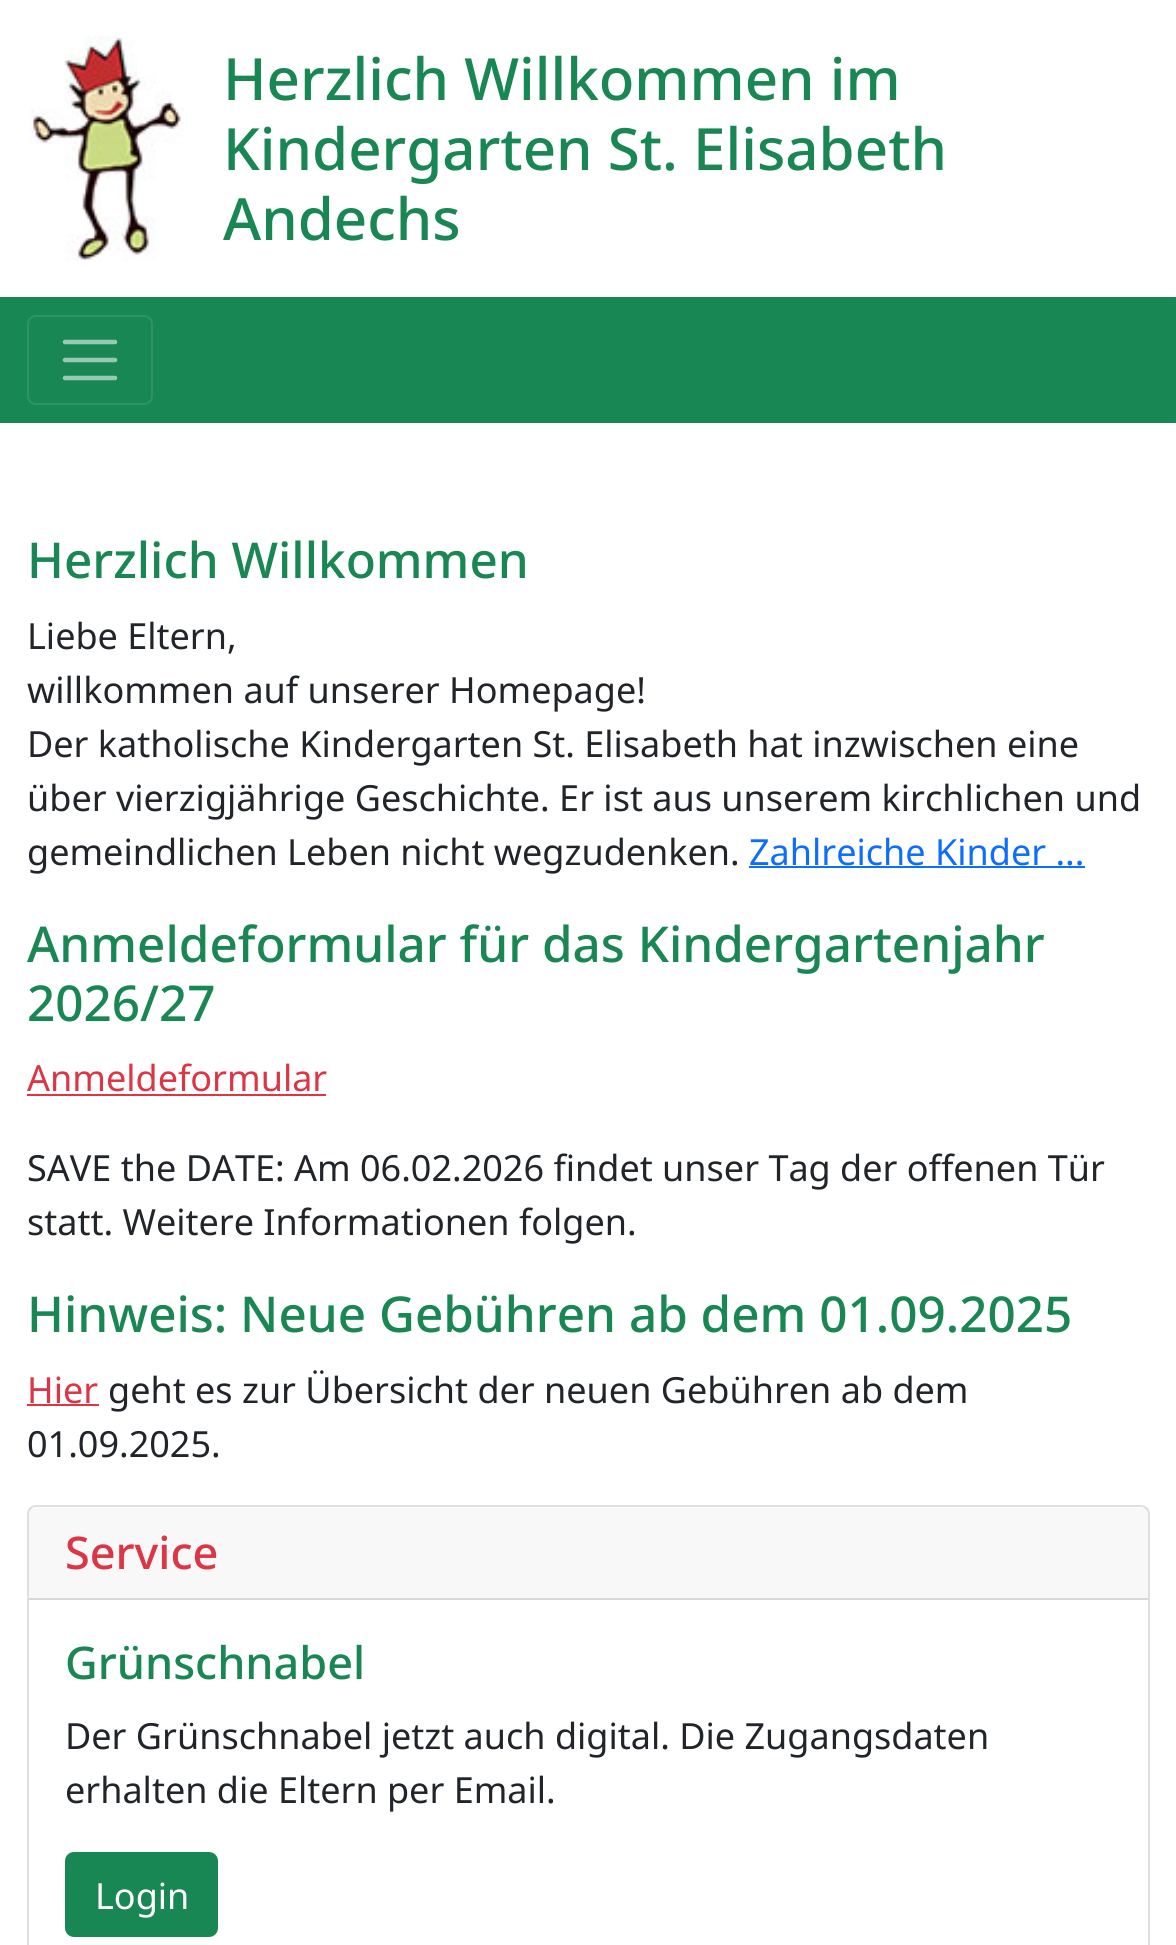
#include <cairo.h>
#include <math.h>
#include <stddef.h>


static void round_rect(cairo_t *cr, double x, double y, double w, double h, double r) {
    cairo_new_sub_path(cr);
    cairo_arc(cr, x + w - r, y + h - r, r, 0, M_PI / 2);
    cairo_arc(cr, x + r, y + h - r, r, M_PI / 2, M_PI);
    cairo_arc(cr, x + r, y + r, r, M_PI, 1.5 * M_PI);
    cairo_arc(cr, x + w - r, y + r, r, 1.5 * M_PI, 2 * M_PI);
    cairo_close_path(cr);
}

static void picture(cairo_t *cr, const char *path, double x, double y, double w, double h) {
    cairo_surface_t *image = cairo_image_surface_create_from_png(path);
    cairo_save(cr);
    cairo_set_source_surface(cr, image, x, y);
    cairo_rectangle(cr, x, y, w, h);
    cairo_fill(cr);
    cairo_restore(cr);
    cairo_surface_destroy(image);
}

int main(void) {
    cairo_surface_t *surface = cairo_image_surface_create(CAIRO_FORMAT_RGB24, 1176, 1945);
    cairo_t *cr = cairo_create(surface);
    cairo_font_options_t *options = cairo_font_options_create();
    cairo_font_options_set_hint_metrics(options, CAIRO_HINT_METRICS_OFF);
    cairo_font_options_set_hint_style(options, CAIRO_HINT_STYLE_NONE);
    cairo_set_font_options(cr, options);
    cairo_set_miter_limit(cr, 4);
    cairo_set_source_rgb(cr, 1, 1, 1);
    cairo_paint(cr);
    picture(cr, "img1.png", 29, 36, 156, 225);
    cairo_select_font_face(cr, "Noto Sans Medium", CAIRO_FONT_SLANT_NORMAL, CAIRO_FONT_WEIGHT_NORMAL);
    cairo_set_font_size(cr, 58.25);
    cairo_set_source_rgb(cr, 0.098, 0.529, 0.329);
    cairo_move_to(cr, 223, 100);
    cairo_show_text(cr, "Herzlich Willkommen im");
    cairo_move_to(cr, 223, 170);
    cairo_show_text(cr, "Kindergarten St. Elisabeth");
    cairo_move_to(cr, 223, 240);
    cairo_show_text(cr, "Andechs");
    cairo_rectangle(cr, 0, 297, 1176, 126);
    cairo_fill(cr);
    round_rect(cr, 28, 316, 124, 88, 8);
    cairo_set_source_rgb(cr, 0.188, 0.576, 0.396);
    cairo_stroke(cr);
    cairo_new_path(cr);
    cairo_move_to(cr, 65, 342);
    cairo_line_to(cr, 115, 342);
    cairo_move_to(cr, 65, 360);
    cairo_line_to(cr, 115, 360);
    cairo_move_to(cr, 65, 378);
    cairo_line_to(cr, 115, 378);
    cairo_set_source_rgb(cr, 0.596, 0.788, 0.698);
    cairo_set_line_width(cr, 4.5);
    cairo_set_line_cap(cr, CAIRO_LINE_CAP_ROUND);
    cairo_stroke(cr);
    cairo_set_font_size(cr, 49.4);
    cairo_set_source_rgb(cr, 0.098, 0.529, 0.329);
    cairo_move_to(cr, 27, 578);
    cairo_show_text(cr, "Herzlich Willkommen");
    cairo_select_font_face(cr, "Noto Sans", CAIRO_FONT_SLANT_NORMAL, CAIRO_FONT_WEIGHT_NORMAL);
    cairo_set_font_size(cr, 36);
    cairo_set_source_rgb(cr, 0.129, 0.145, 0.161);
    cairo_move_to(cr, 27, 649);
    cairo_show_text(cr, "Liebe Eltern,");
    cairo_move_to(cr, 27, 703);
    cairo_show_text(cr, "willkommen auf unserer Homepage!");
    cairo_move_to(cr, 27, 757);
    cairo_show_text(cr, "Der katholische Kindergarten St. Elisabeth hat inzwischen eine");
    cairo_move_to(cr, 27, 811);
    cairo_show_text(cr, "über vierzigjährige Geschichte. Er ist aus unserem kirchlichen und");
    cairo_move_to(cr, 27, 865);
    cairo_show_text(cr, "gemeindlichen Leben nicht wegzudenken.");
    cairo_set_source_rgb(cr, 0.051, 0.431, 0.992);
    cairo_move_to(cr, 749, 865);
    cairo_show_text(cr, "Zahlreiche Kinder ...");
    cairo_rectangle(cr, 749, 866, 336, 2);
    cairo_fill(cr);
    cairo_select_font_face(cr, "Noto Sans Medium", CAIRO_FONT_SLANT_NORMAL, CAIRO_FONT_WEIGHT_NORMAL);
    cairo_set_font_size(cr, 49.4);
    cairo_set_source_rgb(cr, 0.098, 0.529, 0.329);
    cairo_move_to(cr, 27, 962);
    cairo_show_text(cr, "Anmeldeformular für das Kindergartenjahr");
    cairo_move_to(cr, 27, 1021);
    cairo_show_text(cr, "2026/27");
    cairo_select_font_face(cr, "Noto Sans", CAIRO_FONT_SLANT_NORMAL, CAIRO_FONT_WEIGHT_NORMAL);
    cairo_set_font_size(cr, 36);
    cairo_set_source_rgb(cr, 0.863, 0.208, 0.271);
    cairo_move_to(cr, 27, 1091);
    cairo_show_text(cr, "Anmeldeformular");
    cairo_rectangle(cr, 27, 1094, 299, 2);
    cairo_fill(cr);
    cairo_set_source_rgb(cr, 0.129, 0.145, 0.161);
    cairo_move_to(cr, 27, 1181);
    cairo_show_text(cr, "SAVE the DATE: Am 06.02.2026 findet unser Tag der offenen Tür");
    cairo_move_to(cr, 27, 1235);
    cairo_show_text(cr, "statt. Weitere Informationen folgen.");
    cairo_select_font_face(cr, "Noto Sans Medium", CAIRO_FONT_SLANT_NORMAL, CAIRO_FONT_WEIGHT_NORMAL);
    cairo_set_font_size(cr, 49.4);
    cairo_set_source_rgb(cr, 0.098, 0.529, 0.329);
    cairo_move_to(cr, 27, 1332);
    cairo_show_text(cr, "Hinweis: Neue Gebühren ab dem 01.09.2025");
    cairo_select_font_face(cr, "Noto Sans", CAIRO_FONT_SLANT_NORMAL, CAIRO_FONT_WEIGHT_NORMAL);
    cairo_set_font_size(cr, 36);
    cairo_set_source_rgb(cr, 0.863, 0.208, 0.271);
    cairo_move_to(cr, 27, 1403);
    cairo_show_text(cr, "Hier");
    cairo_rectangle(cr, 27, 1404, 72, 2);
    cairo_fill(cr);
    cairo_set_source_rgb(cr, 0.129, 0.145, 0.161);
    cairo_move_to(cr, 108, 1403);
    cairo_show_text(cr, "geht es zur Übersicht der neuen Gebühren ab dem");
    cairo_move_to(cr, 27, 1457);
    cairo_show_text(cr, "01.09.2025.");
    round_rect(cr, 28, 1506, 1121, 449, 8);
    cairo_set_source_rgb(cr, 0.875, 0.875, 0.875);
    cairo_set_line_width(cr, 2);
    cairo_set_line_cap(cr, CAIRO_LINE_CAP_BUTT);
    cairo_stroke(cr);
    cairo_set_source_rgba(cr, 0, 0, 0, 0.03);
    cairo_rectangle(cr, 29, 1508, 1119, 90);
    cairo_fill(cr);
    cairo_set_source_rgb(cr, 0.847, 0.847, 0.847);
    cairo_rectangle(cr, 29, 1598, 1119, 2);
    cairo_fill(cr);
    cairo_select_font_face(cr, "Noto Sans Medium", CAIRO_FONT_SLANT_NORMAL, CAIRO_FONT_WEIGHT_NORMAL);
    cairo_set_font_size(cr, 45);
    cairo_set_source_rgb(cr, 0.863, 0.208, 0.271);
    cairo_move_to(cr, 65, 1569);
    cairo_show_text(cr, "Service");
    cairo_set_source_rgb(cr, 0.098, 0.529, 0.329);
    cairo_move_to(cr, 65, 1679);
    cairo_show_text(cr, "Grünschnabel");
    cairo_select_font_face(cr, "Noto Sans", CAIRO_FONT_SLANT_NORMAL, CAIRO_FONT_WEIGHT_NORMAL);
    cairo_set_font_size(cr, 36);
    cairo_set_source_rgb(cr, 0.129, 0.145, 0.161);
    cairo_move_to(cr, 65, 1749);
    cairo_show_text(cr, "Der Grünschnabel jetzt auch digital. Die Zugangsdaten");
    cairo_move_to(cr, 65, 1803);
    cairo_show_text(cr, "erhalten die Eltern per Email.");
    cairo_set_source_rgb(cr, 0.098, 0.529, 0.329);
    round_rect(cr, 66, 1853, 151, 83, 8);
    cairo_fill_preserve(cr);
    cairo_stroke(cr);
    cairo_set_source_rgb(cr, 1, 1, 1);
    cairo_move_to(cr, 95, 1909);
    cairo_show_text(cr, "Login");
    cairo_surface_write_to_png(surface, "page.png");
    cairo_font_options_destroy(options);
    cairo_destroy(cr);
    cairo_surface_destroy(surface);
    return 0;
}
